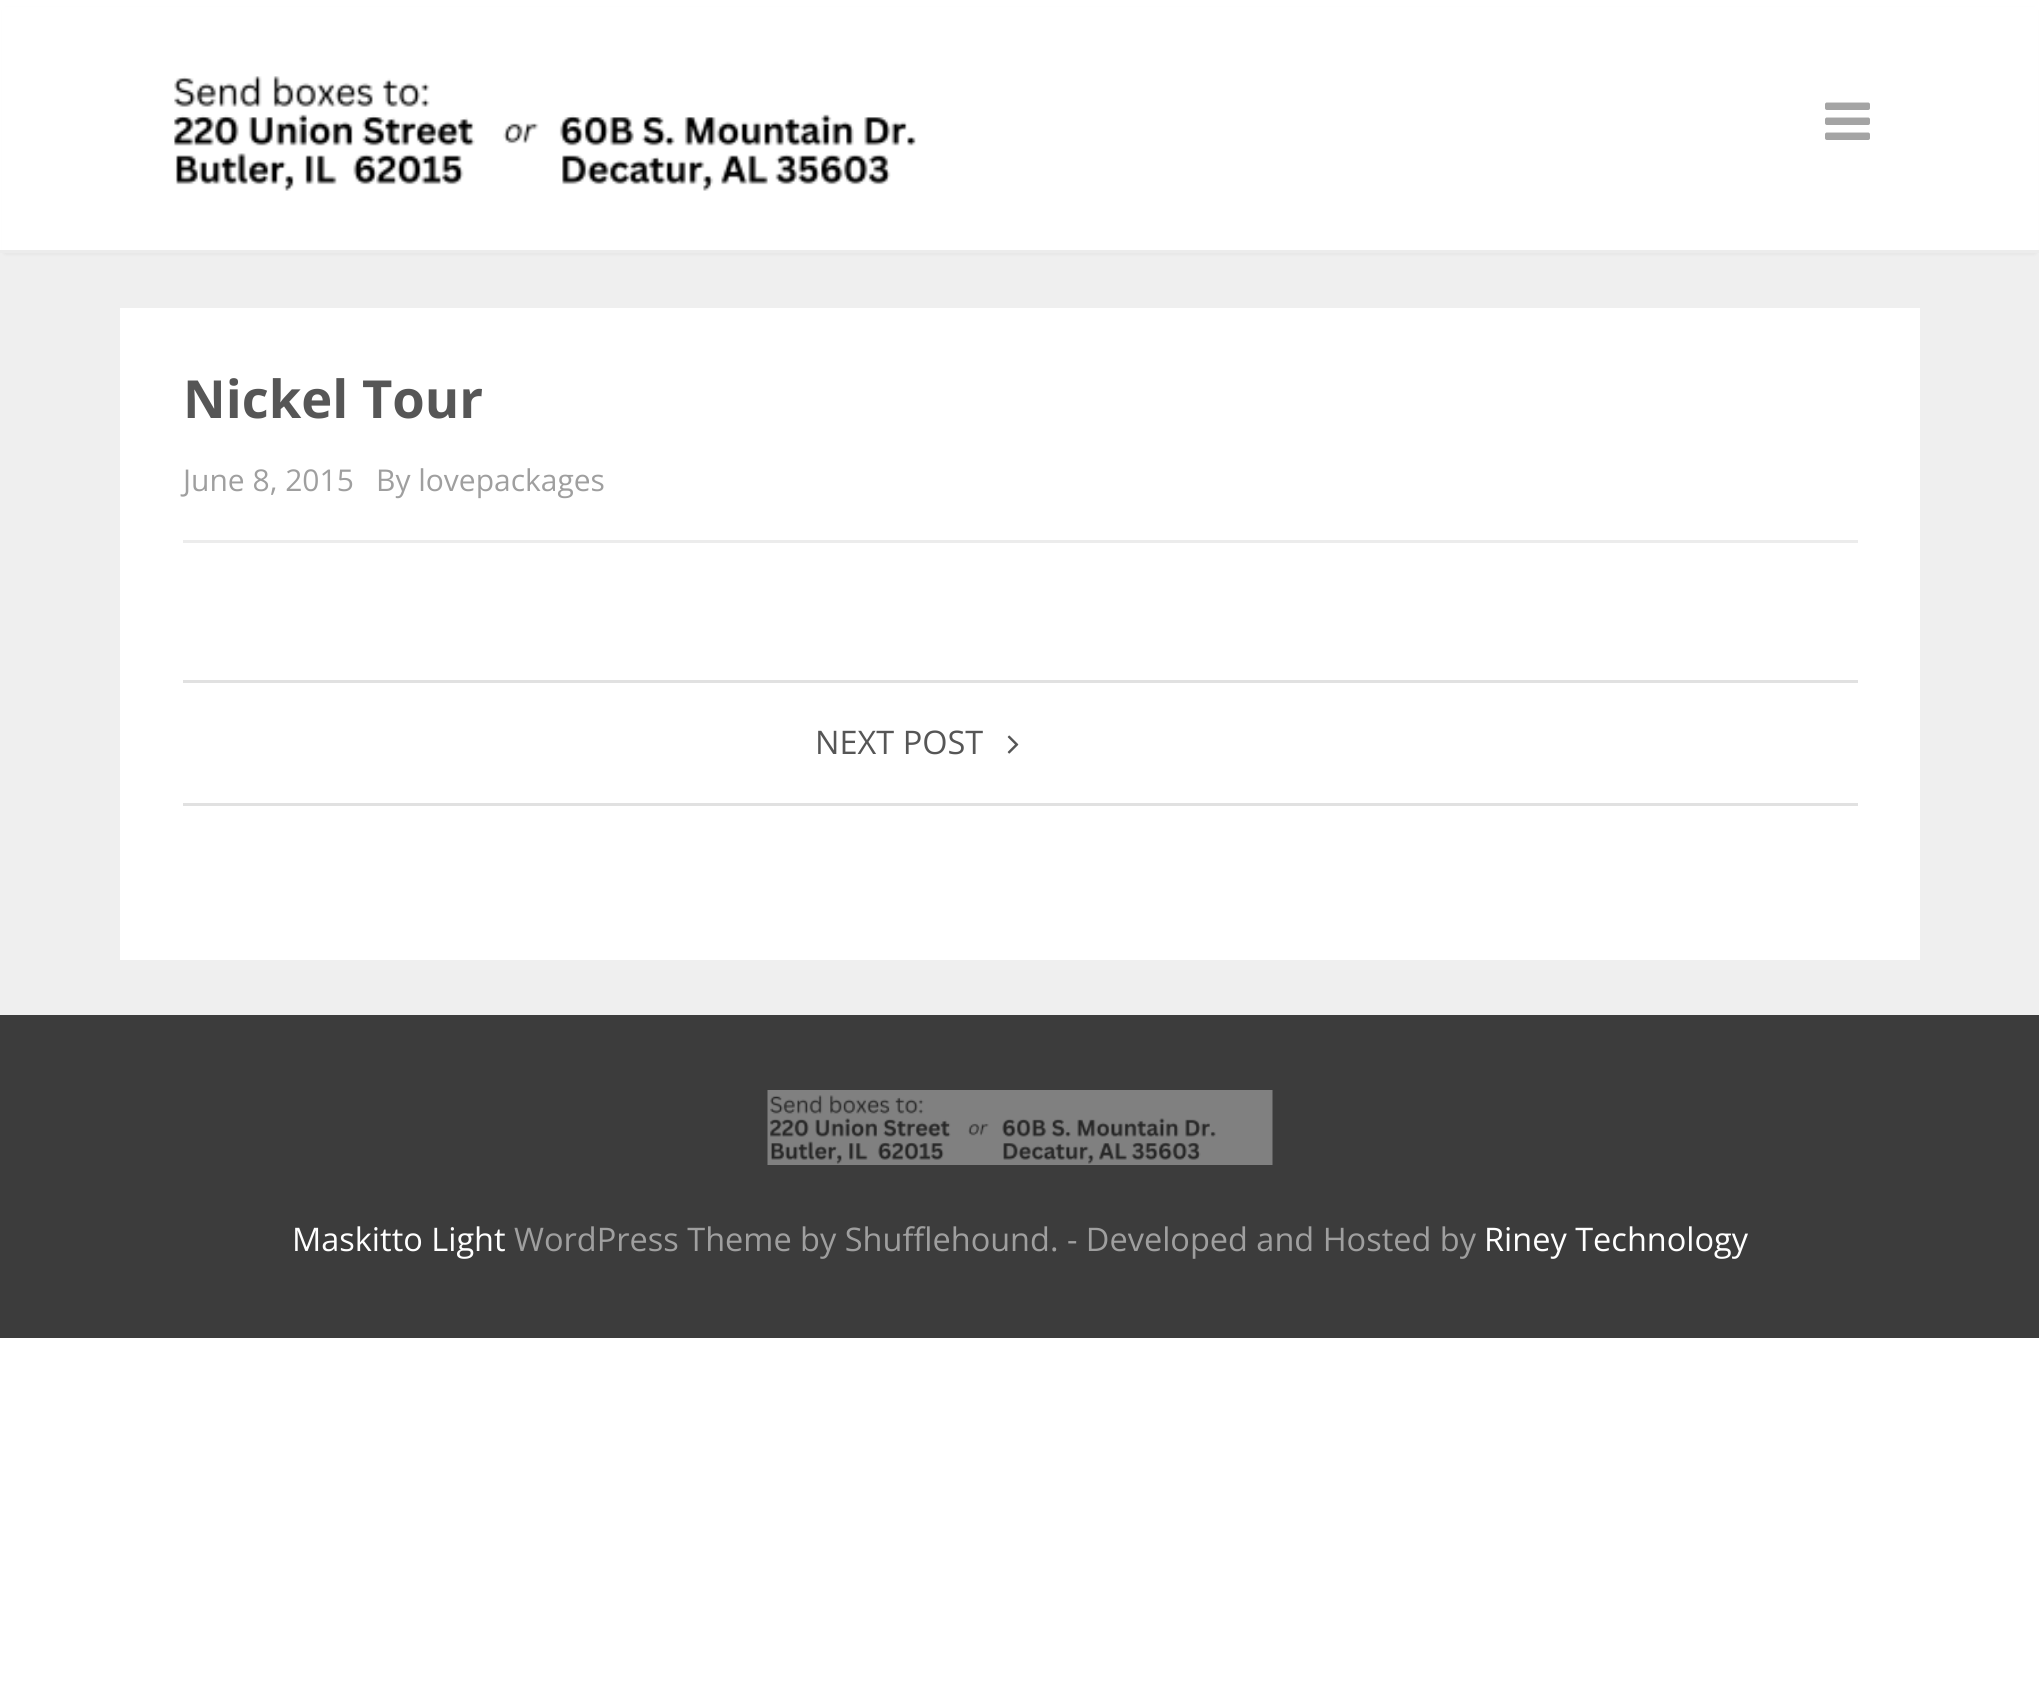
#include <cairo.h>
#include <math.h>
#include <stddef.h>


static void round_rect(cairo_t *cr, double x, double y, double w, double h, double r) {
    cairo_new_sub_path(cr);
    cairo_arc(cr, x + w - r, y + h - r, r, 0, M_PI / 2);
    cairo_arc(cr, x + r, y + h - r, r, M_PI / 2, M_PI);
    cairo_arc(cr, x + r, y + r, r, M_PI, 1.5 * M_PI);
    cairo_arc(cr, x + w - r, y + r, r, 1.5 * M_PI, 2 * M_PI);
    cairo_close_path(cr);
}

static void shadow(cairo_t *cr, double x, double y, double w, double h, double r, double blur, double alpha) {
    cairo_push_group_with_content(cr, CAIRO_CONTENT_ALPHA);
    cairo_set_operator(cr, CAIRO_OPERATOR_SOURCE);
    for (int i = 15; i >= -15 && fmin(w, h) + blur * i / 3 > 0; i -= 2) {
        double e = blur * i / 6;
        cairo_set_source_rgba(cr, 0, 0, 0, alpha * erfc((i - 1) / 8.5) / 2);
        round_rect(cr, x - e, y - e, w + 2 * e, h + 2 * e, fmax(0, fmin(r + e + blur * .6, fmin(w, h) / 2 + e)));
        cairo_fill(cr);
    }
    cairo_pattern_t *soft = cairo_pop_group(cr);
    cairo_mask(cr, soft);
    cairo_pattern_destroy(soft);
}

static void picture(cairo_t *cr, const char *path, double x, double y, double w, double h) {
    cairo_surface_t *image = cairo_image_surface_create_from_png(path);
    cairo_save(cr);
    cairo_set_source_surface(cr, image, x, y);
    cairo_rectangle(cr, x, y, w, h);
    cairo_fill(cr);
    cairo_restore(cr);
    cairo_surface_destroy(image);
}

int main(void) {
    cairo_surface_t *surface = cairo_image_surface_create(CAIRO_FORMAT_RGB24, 2039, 1684);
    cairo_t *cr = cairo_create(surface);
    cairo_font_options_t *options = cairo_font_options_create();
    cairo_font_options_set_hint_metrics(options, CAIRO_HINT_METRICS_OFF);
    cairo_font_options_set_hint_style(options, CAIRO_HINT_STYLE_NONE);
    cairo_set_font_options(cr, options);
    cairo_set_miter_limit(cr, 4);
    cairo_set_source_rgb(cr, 1, 1, 1);
    cairo_paint(cr);
    cairo_set_source_rgb(cr, 0.937, 0.937, 0.937);
    cairo_rectangle(cr, 0, 253, 2039, 762);
    cairo_fill(cr);
    cairo_set_source_rgb(cr, 0, 0, 0);
    shadow(cr, 5, 10, 2030, 243, 0, 2.5, 0.08);
    cairo_set_source_rgb(cr, 1, 1, 1);
    cairo_rectangle(cr, 2, 7, 2036, 243);
    cairo_fill(cr);
    cairo_set_source_rgb(cr, 0.922, 0.922, 0.922);
    cairo_rectangle(cr, 0, 250, 2039, 3);
    cairo_fill(cr);
    picture(cr, "img1.png", 174, 76, 742, 115);
    picture(cr, "img2.png", 1825, 102, 45, 38);
    cairo_set_source_rgb(cr, 1, 1, 1);
    cairo_rectangle(cr, 120, 308, 1800, 652);
    cairo_fill(cr);
    cairo_select_font_face(cr, "Open Sans", CAIRO_FONT_SLANT_NORMAL, CAIRO_FONT_WEIGHT_BOLD);
    cairo_set_font_size(cr, 52.5);
    cairo_set_source_rgb(cr, 0.337, 0.337, 0.337);
    cairo_move_to(cr, 183, 418);
    cairo_show_text(cr, "Nickel Tour");
    cairo_select_font_face(cr, "Open Sans", CAIRO_FONT_SLANT_NORMAL, CAIRO_FONT_WEIGHT_NORMAL);
    cairo_set_font_size(cr, 30);
    cairo_set_source_rgb(cr, 0.624, 0.624, 0.624);
    cairo_move_to(cr, 183, 491);
    cairo_show_text(cr, "June 8, 2015");
    cairo_move_to(cr, 376, 491);
    cairo_show_text(cr, "By lovepackages");
    cairo_set_source_rgb(cr, 0.922, 0.922, 0.922);
    cairo_rectangle(cr, 183, 540, 1675, 3);
    cairo_fill(cr);
    cairo_set_source_rgb(cr, 0.882, 0.882, 0.882);
    cairo_rectangle(cr, 183, 680, 1675, 3);
    cairo_fill(cr);
    cairo_rectangle(cr, 183, 803, 1675, 3);
    cairo_fill(cr);
    cairo_set_font_size(cr, 32.5);
    cairo_set_source_rgb(cr, 0.337, 0.337, 0.337);
    cairo_move_to(cr, 815, 754);
    cairo_show_text(cr, "NEXT POST");
    picture(cr, "img3.png", 1007, 735, 12, 19);
    cairo_set_source_rgb(cr, 0.235, 0.235, 0.235);
    cairo_rectangle(cr, 0, 1015, 2039, 323);
    cairo_fill(cr);
    picture(cr, "img4.png", 767, 1090, 506, 75);
    cairo_set_source_rgb(cr, 1, 1, 1);
    cairo_move_to(cr, 292, 1251);
    cairo_show_text(cr, "Maskitto Light");
    cairo_set_source_rgb(cr, 0.624, 0.624, 0.624);
    cairo_move_to(cr, 514, 1251);
    cairo_show_text(cr, "WordPress Theme by Shufflehound. - Developed and Hosted by");
    cairo_set_source_rgb(cr, 1, 1, 1);
    cairo_move_to(cr, 1484, 1251);
    cairo_show_text(cr, "Riney Technology");
    cairo_surface_write_to_png(surface, "page.png");
    cairo_font_options_destroy(options);
    cairo_destroy(cr);
    cairo_surface_destroy(surface);
    return 0;
}
